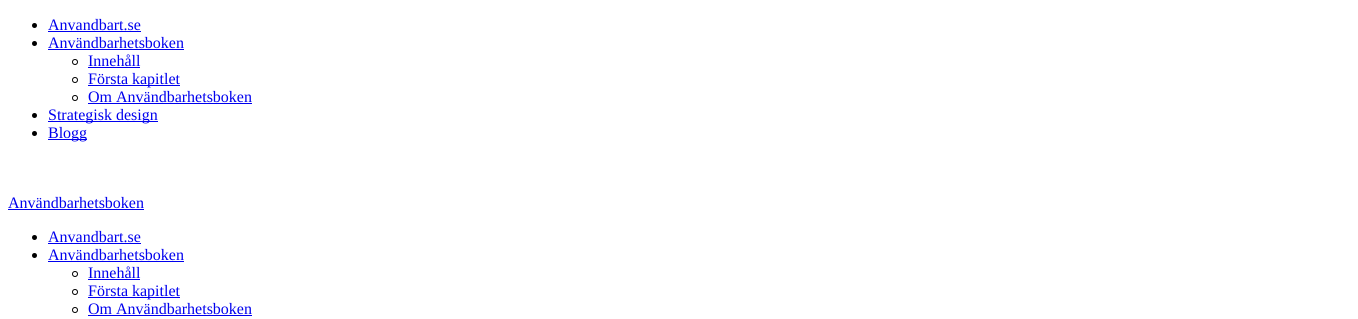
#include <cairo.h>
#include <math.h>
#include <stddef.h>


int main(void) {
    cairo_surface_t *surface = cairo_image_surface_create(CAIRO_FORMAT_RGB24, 1358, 319);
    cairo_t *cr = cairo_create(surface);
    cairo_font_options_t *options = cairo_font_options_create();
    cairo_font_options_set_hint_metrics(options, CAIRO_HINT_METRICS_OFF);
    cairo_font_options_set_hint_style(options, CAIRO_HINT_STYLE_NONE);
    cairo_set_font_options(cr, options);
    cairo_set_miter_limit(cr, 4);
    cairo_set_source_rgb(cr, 1, 1, 1);
    cairo_paint(cr);
    cairo_set_source_rgb(cr, 0, 0, 0);
    cairo_arc(cr, 34.5, 25.5, 2.5, 0, 2 * M_PI);
    cairo_fill(cr);
    cairo_select_font_face(cr, "Liberation Serif", CAIRO_FONT_SLANT_NORMAL, CAIRO_FONT_WEIGHT_NORMAL);
    cairo_set_font_size(cr, 16);
    cairo_set_source_rgb(cr, 0, 0, 0.933);
    cairo_move_to(cr, 48, 30);
    cairo_show_text(cr, "Anvandbart.se");
    cairo_rectangle(cr, 48, 31, 93, 1);
    cairo_fill(cr);
    cairo_set_source_rgb(cr, 0, 0, 0);
    cairo_arc(cr, 34.5, 43.5, 2.5, 0, 2 * M_PI);
    cairo_fill(cr);
    cairo_set_source_rgb(cr, 0, 0, 0.933);
    cairo_move_to(cr, 48, 48);
    cairo_show_text(cr, "Användbarhetsboken");
    cairo_rectangle(cr, 48, 49, 136, 1);
    cairo_fill(cr);
    cairo_arc(cr, 75, 62, 2.5, 0, 2 * M_PI);
    cairo_set_source_rgb(cr, 0, 0, 0);
    cairo_set_line_width(cr, 1);
    cairo_stroke(cr);
    cairo_set_source_rgb(cr, 0, 0, 0.933);
    cairo_move_to(cr, 88, 66);
    cairo_show_text(cr, "Innehåll");
    cairo_rectangle(cr, 88, 67, 52, 1);
    cairo_fill(cr);
    cairo_arc(cr, 75, 80, 2.5, 0, 2 * M_PI);
    cairo_set_source_rgb(cr, 0, 0, 0);
    cairo_stroke(cr);
    cairo_set_source_rgb(cr, 0, 0, 0.933);
    cairo_rectangle(cr, 88, 85, 92, 1);
    cairo_fill(cr);
    cairo_move_to(cr, 88, 84);
    cairo_show_text(cr, "Första kapitlet");
    cairo_new_path(cr);
    cairo_arc(cr, 75, 98, 2.5, 0, 2 * M_PI);
    cairo_set_source_rgb(cr, 0, 0, 0);
    cairo_stroke(cr);
    cairo_set_source_rgb(cr, 0, 0, 0.933);
    cairo_move_to(cr, 88, 102);
    cairo_show_text(cr, "Om Användbarhetsboken");
    cairo_rectangle(cr, 88, 103, 164, 1);
    cairo_fill(cr);
    cairo_set_source_rgb(cr, 0, 0, 0);
    cairo_arc(cr, 34.5, 115.5, 2.5, 0, 2 * M_PI);
    cairo_fill(cr);
    cairo_set_source_rgb(cr, 0, 0, 0.933);
    cairo_rectangle(cr, 48, 121, 110, 1);
    cairo_fill(cr);
    cairo_move_to(cr, 48, 120);
    cairo_show_text(cr, "Strategisk design");
    cairo_set_source_rgb(cr, 0, 0, 0);
    cairo_new_path(cr);
    cairo_arc(cr, 34.5, 133.5, 2.5, 0, 2 * M_PI);
    cairo_fill(cr);
    cairo_set_source_rgb(cr, 0, 0, 0.933);
    cairo_rectangle(cr, 48, 139, 39, 1);
    cairo_fill(cr);
    cairo_move_to(cr, 48, 138);
    cairo_show_text(cr, "Blogg");
    cairo_move_to(cr, 8, 208);
    cairo_show_text(cr, "Användbarhetsboken");
    cairo_rectangle(cr, 8, 209, 136, 1);
    cairo_fill(cr);
    cairo_set_source_rgb(cr, 0, 0, 0);
    cairo_arc(cr, 34.5, 237.5, 2.5, 0, 2 * M_PI);
    cairo_fill(cr);
    cairo_set_source_rgb(cr, 0, 0, 0.933);
    cairo_move_to(cr, 48, 242);
    cairo_show_text(cr, "Anvandbart.se");
    cairo_rectangle(cr, 48, 243, 93, 1);
    cairo_fill(cr);
    cairo_set_source_rgb(cr, 0, 0, 0);
    cairo_arc(cr, 34.5, 255.5, 2.5, 0, 2 * M_PI);
    cairo_fill(cr);
    cairo_set_source_rgb(cr, 0, 0, 0.933);
    cairo_move_to(cr, 48, 260);
    cairo_show_text(cr, "Användbarhetsboken");
    cairo_rectangle(cr, 48, 261, 136, 1);
    cairo_fill(cr);
    cairo_arc(cr, 75, 274, 2.5, 0, 2 * M_PI);
    cairo_set_source_rgb(cr, 0, 0, 0);
    cairo_stroke(cr);
    cairo_set_source_rgb(cr, 0, 0, 0.933);
    cairo_move_to(cr, 88, 278);
    cairo_show_text(cr, "Innehåll");
    cairo_rectangle(cr, 88, 279, 52, 1);
    cairo_fill(cr);
    cairo_arc(cr, 75, 292, 2.5, 0, 2 * M_PI);
    cairo_set_source_rgb(cr, 0, 0, 0);
    cairo_stroke(cr);
    cairo_set_source_rgb(cr, 0, 0, 0.933);
    cairo_rectangle(cr, 88, 297, 92, 1);
    cairo_fill(cr);
    cairo_move_to(cr, 88, 296);
    cairo_show_text(cr, "Första kapitlet");
    cairo_new_path(cr);
    cairo_arc(cr, 75, 310, 2.5, 0, 2 * M_PI);
    cairo_set_source_rgb(cr, 0, 0, 0);
    cairo_stroke(cr);
    cairo_set_source_rgb(cr, 0, 0, 0.933);
    cairo_move_to(cr, 88, 314);
    cairo_show_text(cr, "Om Användbarhetsboken");
    cairo_rectangle(cr, 88, 315, 164, 1);
    cairo_fill(cr);
    cairo_surface_write_to_png(surface, "page.png");
    cairo_font_options_destroy(options);
    cairo_destroy(cr);
    cairo_surface_destroy(surface);
    return 0;
}
